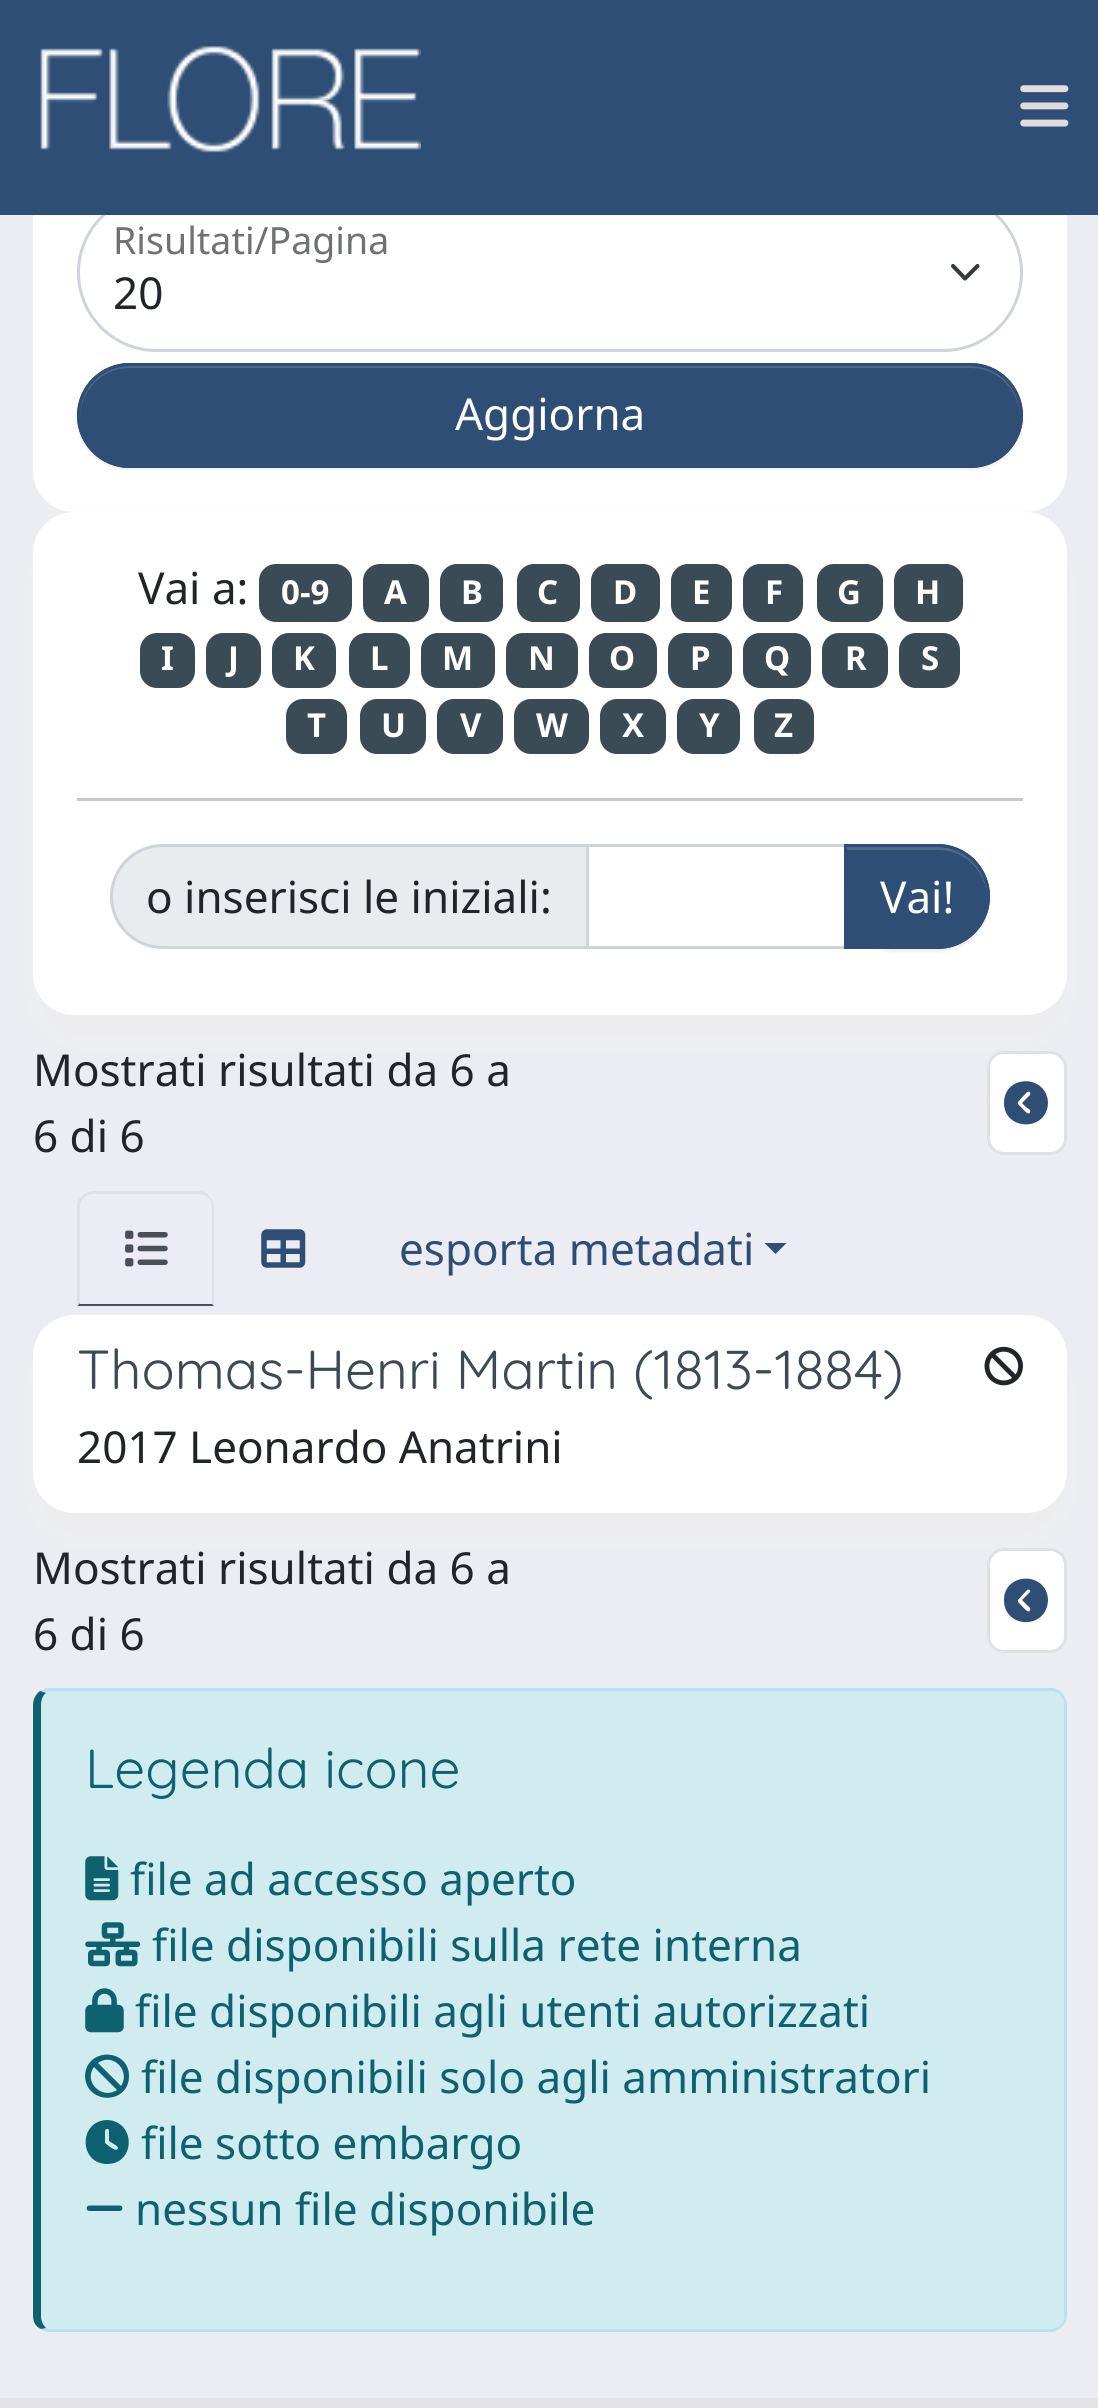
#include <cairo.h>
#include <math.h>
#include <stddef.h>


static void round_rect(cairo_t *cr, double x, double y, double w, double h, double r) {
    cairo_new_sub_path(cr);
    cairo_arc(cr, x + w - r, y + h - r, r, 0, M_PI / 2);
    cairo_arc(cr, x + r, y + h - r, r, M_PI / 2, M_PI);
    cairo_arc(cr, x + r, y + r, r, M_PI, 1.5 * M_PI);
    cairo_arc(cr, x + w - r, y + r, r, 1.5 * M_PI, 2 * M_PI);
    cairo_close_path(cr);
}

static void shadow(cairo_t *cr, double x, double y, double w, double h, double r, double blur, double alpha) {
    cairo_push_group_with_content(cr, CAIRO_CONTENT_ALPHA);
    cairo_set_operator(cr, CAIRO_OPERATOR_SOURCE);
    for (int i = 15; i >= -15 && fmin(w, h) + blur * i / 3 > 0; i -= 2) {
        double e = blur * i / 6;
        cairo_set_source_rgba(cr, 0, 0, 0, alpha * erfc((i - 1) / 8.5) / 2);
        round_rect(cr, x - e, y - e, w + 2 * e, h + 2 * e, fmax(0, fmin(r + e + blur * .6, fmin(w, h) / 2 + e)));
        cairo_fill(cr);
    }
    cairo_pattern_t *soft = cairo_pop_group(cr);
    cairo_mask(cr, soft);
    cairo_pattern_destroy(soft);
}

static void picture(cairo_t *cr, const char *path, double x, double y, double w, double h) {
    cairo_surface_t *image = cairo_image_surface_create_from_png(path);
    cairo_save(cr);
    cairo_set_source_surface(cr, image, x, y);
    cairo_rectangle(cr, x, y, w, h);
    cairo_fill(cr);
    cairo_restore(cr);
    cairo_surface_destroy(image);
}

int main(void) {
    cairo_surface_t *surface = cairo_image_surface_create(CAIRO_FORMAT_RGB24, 1098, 2408);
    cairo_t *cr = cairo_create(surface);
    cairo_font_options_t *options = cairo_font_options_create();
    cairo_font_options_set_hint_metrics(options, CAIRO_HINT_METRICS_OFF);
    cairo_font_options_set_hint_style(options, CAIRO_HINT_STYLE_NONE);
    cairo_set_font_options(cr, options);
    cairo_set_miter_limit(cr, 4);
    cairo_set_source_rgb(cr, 0.925, 0.929, 0.949);
    cairo_paint(cr);
    cairo_set_source_rgb(cr, 1, 1, 1);
    round_rect(cr, 33, -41, 1034, 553, 41);
    cairo_fill(cr);
    cairo_new_path(cr);
    cairo_move_to(cr, 953, 266);
    cairo_line_to(cr, 965, 278.5);
    cairo_line_to(cr, 977.5, 266);
    cairo_set_source_rgb(cr, 0.204, 0.227, 0.251);
    cairo_set_line_width(cr, 4.1);
    cairo_set_line_cap(cr, CAIRO_LINE_CAP_ROUND);
    cairo_set_line_join(cr, CAIRO_LINE_JOIN_ROUND);
    cairo_stroke(cr);
    round_rect(cr, 78.5, 194.5, 943, 156, 78);
    cairo_set_source_rgb(cr, 0.808, 0.831, 0.855);
    cairo_set_line_width(cr, 3);
    cairo_set_line_cap(cr, CAIRO_LINE_CAP_BUTT);
    cairo_set_line_join(cr, CAIRO_LINE_JOIN_MITER);
    cairo_stroke(cr);
    cairo_set_source_rgb(cr, 0.184, 0.306, 0.459);
    cairo_rectangle(cr, 0, 0, 1098, 215);
    cairo_fill(cr);
    picture(cr, "img1.png", 40, 46, 381, 107);
    picture(cr, "img2.png", 1020, 85, 49, 42);
    cairo_select_font_face(cr, "Noto Sans", CAIRO_FONT_SLANT_NORMAL, CAIRO_FONT_WEIGHT_NORMAL);
    cairo_set_font_size(cr, 37.5);
    cairo_set_source_rgb(cr, 0.435, 0.443, 0.455);
    cairo_move_to(cr, 113, 254);
    cairo_show_text(cr, "Risultati/Pagina");
    cairo_set_font_size(cr, 44);
    cairo_set_source_rgb(cr, 0.129, 0.145, 0.161);
    cairo_move_to(cr, 113, 309);
    cairo_show_text(cr, "20");
    cairo_set_source_rgb(cr, 0, 0, 0);
    shadow(cr, 77, 366, 946, 104, 52, 1.5, 0.07);
    cairo_set_source_rgb(cr, 0.184, 0.306, 0.459);
    round_rect(cr, 77, 363, 946, 105, 52.5);
    cairo_fill(cr);
    cairo_set_source_rgb(cr, 0.306, 0.412, 0.541);
    cairo_new_path(cr);
    cairo_move_to(cr, 129, 368);
    cairo_line_to(cr, 971, 368);
    cairo_curve_to(cr, 998, 368, 1019, 390, 1020, 417);
    cairo_curve_to(cr, 1021, 389, 998, 366, 970, 366);
    cairo_line_to(cr, 130, 366);
    cairo_curve_to(cr, 102, 366, 79, 389, 80, 417);
    cairo_curve_to(cr, 81, 390, 102, 368, 129, 368);
    cairo_close_path(cr);
    cairo_fill(cr);
    round_rect(cr, 78.5, 364.5, 943, 102, 51);
    cairo_set_source_rgb(cr, 0.184, 0.306, 0.459);
    cairo_stroke(cr);
    cairo_set_source_rgb(cr, 1, 1, 1);
    cairo_move_to(cr, 455, 430);
    cairo_show_text(cr, "Aggiorna");
    cairo_set_source_rgb(cr, 0.933, 0.933, 0.933);
    shadow(cr, 41, 547, 1018, 487, 33, 20.5, 1);
    cairo_set_source_rgb(cr, 1, 1, 1);
    round_rect(cr, 33, 512, 1034, 503, 41);
    cairo_fill(cr);
    cairo_set_source_rgb(cr, 0.129, 0.145, 0.161);
    cairo_move_to(cr, 138, 604);
    cairo_show_text(cr, "Vai a:");
    cairo_set_source_rgb(cr, 0.227, 0.294, 0.333);
    round_rect(cr, 259, 564, 93, 58, 17);
    cairo_fill(cr);
    cairo_select_font_face(cr, "Noto Sans", CAIRO_FONT_SLANT_NORMAL, CAIRO_FONT_WEIGHT_BOLD);
    cairo_set_font_size(cr, 33);
    cairo_set_source_rgb(cr, 1, 1, 1);
    cairo_move_to(cr, 281, 604);
    cairo_show_text(cr, "0-9");
    cairo_set_source_rgb(cr, 0.227, 0.294, 0.333);
    round_rect(cr, 363, 564, 66, 58, 17);
    cairo_fill(cr);
    cairo_set_source_rgb(cr, 1, 1, 1);
    cairo_move_to(cr, 384, 604);
    cairo_show_text(cr, "A");
    cairo_set_source_rgb(cr, 0.227, 0.294, 0.333);
    round_rect(cr, 440, 564, 63, 58, 17);
    cairo_fill(cr);
    cairo_set_source_rgb(cr, 1, 1, 1);
    cairo_move_to(cr, 461, 604);
    cairo_show_text(cr, "B");
    cairo_set_source_rgb(cr, 0.227, 0.294, 0.333);
    round_rect(cr, 517, 564, 63, 58, 17);
    cairo_fill(cr);
    cairo_set_source_rgb(cr, 1, 1, 1);
    cairo_move_to(cr, 537, 604);
    cairo_show_text(cr, "C");
    cairo_set_source_rgb(cr, 0.227, 0.294, 0.333);
    round_rect(cr, 591, 564, 69, 58, 17);
    cairo_fill(cr);
    cairo_set_source_rgb(cr, 1, 1, 1);
    cairo_move_to(cr, 613, 604);
    cairo_show_text(cr, "D");
    cairo_set_source_rgb(cr, 0.227, 0.294, 0.333);
    round_rect(cr, 671, 564, 61, 58, 17);
    cairo_fill(cr);
    cairo_set_source_rgb(cr, 1, 1, 1);
    cairo_move_to(cr, 692, 604);
    cairo_show_text(cr, "E");
    cairo_set_source_rgb(cr, 0.227, 0.294, 0.333);
    round_rect(cr, 743, 564, 60, 58, 17);
    cairo_fill(cr);
    cairo_set_source_rgb(cr, 1, 1, 1);
    cairo_move_to(cr, 765, 604);
    cairo_show_text(cr, "F");
    cairo_set_source_rgb(cr, 0.227, 0.294, 0.333);
    round_rect(cr, 817, 564, 66, 58, 17);
    cairo_fill(cr);
    cairo_set_source_rgb(cr, 1, 1, 1);
    cairo_move_to(cr, 837, 604);
    cairo_show_text(cr, "G");
    cairo_set_source_rgb(cr, 0.227, 0.294, 0.333);
    round_rect(cr, 894, 564, 69, 58, 17);
    cairo_fill(cr);
    cairo_set_source_rgb(cr, 1, 1, 1);
    cairo_move_to(cr, 915, 604);
    cairo_show_text(cr, "H");
    cairo_set_source_rgb(cr, 0.227, 0.294, 0.333);
    round_rect(cr, 140, 633, 55, 55, 17);
    cairo_fill(cr);
    cairo_set_source_rgb(cr, 1, 1, 1);
    cairo_move_to(cr, 161, 670);
    cairo_show_text(cr, "I");
    cairo_set_source_rgb(cr, 0.227, 0.294, 0.333);
    round_rect(cr, 206, 633, 55, 55, 17);
    cairo_fill(cr);
    cairo_set_source_rgb(cr, 1, 1, 1);
    cairo_move_to(cr, 228, 670);
    cairo_show_text(cr, "J");
    cairo_set_source_rgb(cr, 0.227, 0.294, 0.333);
    round_rect(cr, 272, 633, 64, 55, 17);
    cairo_fill(cr);
    cairo_set_source_rgb(cr, 1, 1, 1);
    cairo_move_to(cr, 293, 670);
    cairo_show_text(cr, "K");
    cairo_set_source_rgb(cr, 0.227, 0.294, 0.333);
    round_rect(cr, 349, 633, 61, 55, 17);
    cairo_fill(cr);
    cairo_set_source_rgb(cr, 1, 1, 1);
    cairo_move_to(cr, 370, 670);
    cairo_show_text(cr, "L");
    cairo_set_source_rgb(cr, 0.227, 0.294, 0.333);
    round_rect(cr, 421, 633, 74, 55, 17);
    cairo_fill(cr);
    cairo_set_source_rgb(cr, 1, 1, 1);
    cairo_move_to(cr, 442, 670);
    cairo_show_text(cr, "M");
    cairo_set_source_rgb(cr, 0.227, 0.294, 0.333);
    round_rect(cr, 506, 633, 72, 55, 17);
    cairo_fill(cr);
    cairo_set_source_rgb(cr, 1, 1, 1);
    cairo_move_to(cr, 528, 670);
    cairo_show_text(cr, "N");
    cairo_set_source_rgb(cr, 0.227, 0.294, 0.333);
    round_rect(cr, 589, 633, 68, 55, 17);
    cairo_fill(cr);
    cairo_set_source_rgb(cr, 1, 1, 1);
    cairo_move_to(cr, 609, 670);
    cairo_show_text(cr, "O");
    cairo_set_source_rgb(cr, 0.227, 0.294, 0.333);
    round_rect(cr, 668, 633, 64, 55, 17);
    cairo_fill(cr);
    cairo_set_source_rgb(cr, 1, 1, 1);
    cairo_move_to(cr, 690, 670);
    cairo_show_text(cr, "P");
    cairo_set_source_rgb(cr, 0.227, 0.294, 0.333);
    round_rect(cr, 743, 633, 68, 55, 17);
    cairo_fill(cr);
    cairo_set_source_rgb(cr, 1, 1, 1);
    cairo_move_to(cr, 764, 670);
    cairo_show_text(cr, "Q");
    cairo_set_source_rgb(cr, 0.227, 0.294, 0.333);
    round_rect(cr, 822, 633, 66, 55, 17);
    cairo_fill(cr);
    cairo_set_source_rgb(cr, 1, 1, 1);
    cairo_move_to(cr, 845, 670);
    cairo_show_text(cr, "R");
    cairo_set_source_rgb(cr, 0.227, 0.294, 0.333);
    round_rect(cr, 899, 633, 61, 55, 17);
    cairo_fill(cr);
    cairo_set_source_rgb(cr, 1, 1, 1);
    cairo_move_to(cr, 921, 670);
    cairo_show_text(cr, "S");
    cairo_set_source_rgb(cr, 0.227, 0.294, 0.333);
    round_rect(cr, 286, 699, 61, 55, 17);
    cairo_fill(cr);
    cairo_set_source_rgb(cr, 1, 1, 1);
    cairo_move_to(cr, 307, 737);
    cairo_show_text(cr, "T");
    cairo_set_source_rgb(cr, 0.227, 0.294, 0.333);
    round_rect(cr, 360, 699, 66, 55, 17);
    cairo_fill(cr);
    cairo_set_source_rgb(cr, 1, 1, 1);
    cairo_move_to(cr, 381, 737);
    cairo_show_text(cr, "U");
    cairo_set_source_rgb(cr, 0.227, 0.294, 0.333);
    round_rect(cr, 437, 699, 66, 55, 17);
    cairo_fill(cr);
    cairo_set_source_rgb(cr, 1, 1, 1);
    cairo_move_to(cr, 460, 737);
    cairo_show_text(cr, "V");
    cairo_set_source_rgb(cr, 0.227, 0.294, 0.333);
    round_rect(cr, 514, 699, 75, 55, 17);
    cairo_fill(cr);
    cairo_set_source_rgb(cr, 1, 1, 1);
    cairo_move_to(cr, 536, 737);
    cairo_show_text(cr, "W");
    cairo_set_source_rgb(cr, 0.227, 0.294, 0.333);
    round_rect(cr, 600, 699, 66, 55, 17);
    cairo_fill(cr);
    cairo_set_source_rgb(cr, 1, 1, 1);
    cairo_move_to(cr, 622, 737);
    cairo_show_text(cr, "X");
    cairo_set_source_rgb(cr, 0.227, 0.294, 0.333);
    round_rect(cr, 677, 699, 63, 55, 17);
    cairo_fill(cr);
    cairo_set_source_rgb(cr, 1, 1, 1);
    cairo_move_to(cr, 699, 737);
    cairo_show_text(cr, "Y");
    cairo_set_source_rgb(cr, 0.227, 0.294, 0.333);
    round_rect(cr, 754, 699, 60, 55, 17);
    cairo_fill(cr);
    cairo_set_source_rgb(cr, 1, 1, 1);
    cairo_move_to(cr, 774, 737);
    cairo_show_text(cr, "Z");
    cairo_set_source_rgb(cr, 0.784, 0.788, 0.792);
    cairo_rectangle(cr, 77, 798, 946, 3);
    cairo_fill(cr);
    cairo_set_source_rgb(cr, 0.914, 0.925, 0.937);
    cairo_new_path(cr);
    cairo_move_to(cr, 162.5, 845.5);
    cairo_line_to(cr, 587.5, 845.5);
    cairo_line_to(cr, 587.5, 947.5);
    cairo_line_to(cr, 162.5, 947.5);
    cairo_curve_to(cr, 134.5, 947.5, 111.5, 924.5, 111.5, 896.5);
    cairo_curve_to(cr, 111.5, 868.5, 134.5, 845.5, 162.5, 845.5);
    cairo_close_path(cr);
    cairo_fill_preserve(cr);
    cairo_set_source_rgb(cr, 0.808, 0.831, 0.855);
    cairo_stroke(cr);
    cairo_select_font_face(cr, "Noto Sans", CAIRO_FONT_SLANT_NORMAL, CAIRO_FONT_WEIGHT_NORMAL);
    cairo_set_font_size(cr, 44);
    cairo_set_source_rgb(cr, 0.129, 0.145, 0.161);
    cairo_move_to(cr, 146, 913);
    cairo_show_text(cr, "o inserisci le iniziali:");
    cairo_rectangle(cr, 587.5, 845.5, 258, 102);
    cairo_set_source_rgb(cr, 0.808, 0.831, 0.855);
    cairo_stroke(cr);
    cairo_set_source_rgb(cr, 0, 0, 0);
    shadow(cr, 844, 847, 146, 105, 52.5, 1.5, 0.07);
    cairo_set_source_rgb(cr, 0.184, 0.306, 0.459);
    cairo_new_path(cr);
    cairo_move_to(cr, 844, 844);
    cairo_line_to(cr, 937.5, 844);
    cairo_curve_to(cr, 966.5, 844, 990, 867.5, 990, 896.5);
    cairo_curve_to(cr, 990, 925.5, 966.5, 949, 937.5, 949);
    cairo_line_to(cr, 844, 949);
    cairo_close_path(cr);
    cairo_fill(cr);
    cairo_set_source_rgb(cr, 0.306, 0.412, 0.541);
    cairo_new_path(cr);
    cairo_move_to(cr, 847, 850);
    cairo_line_to(cr, 938, 850);
    cairo_curve_to(cr, 965, 850, 986, 871, 987, 898);
    cairo_line_to(cr, 987, 896);
    cairo_curve_to(cr, 987, 869, 965, 847, 938, 847);
    cairo_line_to(cr, 847, 847);
    cairo_close_path(cr);
    cairo_fill(cr);
    cairo_new_path(cr);
    cairo_move_to(cr, 845.5, 845.5);
    cairo_line_to(cr, 937.5, 845.5);
    cairo_curve_to(cr, 965.5, 845.5, 988.5, 868.5, 988.5, 896.5);
    cairo_curve_to(cr, 988.5, 924.5, 965.5, 947.5, 937.5, 947.5);
    cairo_line_to(cr, 845.5, 947.5);
    cairo_close_path(cr);
    cairo_set_source_rgb(cr, 0.184, 0.306, 0.459);
    cairo_stroke(cr);
    cairo_set_source_rgb(cr, 1, 1, 1);
    cairo_move_to(cr, 880, 913);
    cairo_show_text(cr, "Vai!");
    cairo_set_source_rgb(cr, 0.129, 0.145, 0.161);
    cairo_move_to(cr, 33, 1086);
    cairo_show_text(cr, "Mostrati risultati da 6 a");
    cairo_move_to(cr, 33, 1152);
    cairo_show_text(cr, "6 di 6");
    cairo_set_source_rgb(cr, 1, 1, 1);
    round_rect(cr, 988.5, 1052.5, 77, 101, 15.5);
    cairo_fill_preserve(cr);
    cairo_set_source_rgb(cr, 0.871, 0.886, 0.902);
    cairo_stroke(cr);
    cairo_set_source_rgb(cr, 0.184, 0.306, 0.459);
    cairo_new_path(cr);
    cairo_move_to(cr, 1048, 1103);
    cairo_curve_to(cr, 1047, 1074, 1004, 1074, 1004, 1103);
    cairo_curve_to(cr, 1004, 1131, 1047, 1132, 1048, 1103);
    cairo_close_path(cr);
    cairo_move_to(cr, 1027, 1092);
    cairo_curve_to(cr, 1029, 1091, 1031, 1092, 1030, 1095);
    cairo_line_to(cr, 1022, 1103);
    cairo_line_to(cr, 1027, 1108);
    cairo_curve_to(cr, 1029, 1109, 1031, 1110, 1030, 1112);
    cairo_curve_to(cr, 1029, 1117, 1022, 1108, 1021, 1107);
    cairo_curve_to(cr, 1020, 1106, 1017, 1104, 1018, 1102);
    cairo_close_path(cr);
    cairo_fill(cr);
    cairo_set_source_rgb(cr, 0.871, 0.886, 0.902);
    cairo_new_path(cr);
    cairo_move_to(cr, 94, 1191);
    cairo_curve_to(cr, 89, 1191, 85, 1193, 82, 1196);
    cairo_line_to(cr, 84, 1198);
    cairo_curve_to(cr, 87, 1195, 90, 1194, 94, 1194);
    cairo_line_to(cr, 198, 1194);
    cairo_curve_to(cr, 202, 1194, 205, 1195, 208, 1198);
    cairo_line_to(cr, 209, 1196);
    cairo_curve_to(cr, 207, 1193, 203, 1191, 198, 1191);
    cairo_close_path(cr);
    cairo_fill(cr);
    cairo_new_path(cr);
    cairo_move_to(cr, 214, 1306);
    cairo_line_to(cr, 214, 1207);
    cairo_curve_to(cr, 214, 1203, 212, 1199, 209, 1196);
    cairo_line_to(cr, 208, 1198);
    cairo_curve_to(cr, 210, 1200, 212, 1203, 212, 1207);
    cairo_line_to(cr, 212, 1304);
    cairo_close_path(cr);
    cairo_fill(cr);
    cairo_set_source_rgb(cr, 0.286, 0.314, 0.341);
    cairo_new_path(cr);
    cairo_move_to(cr, 214, 1306);
    cairo_line_to(cr, 77, 1306);
    cairo_line_to(cr, 80, 1303);
    cairo_line_to(cr, 80, 1304);
    cairo_line_to(cr, 212, 1304);
    cairo_close_path(cr);
    cairo_fill(cr);
    cairo_set_source_rgb(cr, 0.871, 0.886, 0.902);
    cairo_new_path(cr);
    cairo_move_to(cr, 77, 1207);
    cairo_line_to(cr, 77, 1306);
    cairo_line_to(cr, 80, 1303);
    cairo_line_to(cr, 80, 1207);
    cairo_curve_to(cr, 80, 1203, 82, 1200, 84, 1198);
    cairo_line_to(cr, 82, 1196);
    cairo_curve_to(cr, 79, 1198, 77, 1202, 77, 1207);
    cairo_close_path(cr);
    cairo_fill(cr);
    picture(cr, "img3.png", 125, 1230, 43, 37);
    picture(cr, "img4.png", 261, 1229, 45, 39);
    cairo_set_source_rgb(cr, 0.184, 0.306, 0.459);
    cairo_move_to(cr, 399, 1265);
    cairo_show_text(cr, "esporta metadati");
    cairo_new_path(cr);
    cairo_move_to(cr, 764.5, 1243);
    cairo_line_to(cr, 786.5, 1243);
    cairo_line_to(cr, 775.5, 1254);
    cairo_close_path(cr);
    cairo_fill(cr);
    cairo_set_source_rgb(cr, 0.933, 0.933, 0.933);
    shadow(cr, 41, 1350, 1018, 182, 33, 20.5, 1);
    cairo_set_source_rgb(cr, 1, 1, 1);
    round_rect(cr, 33, 1315, 1034, 198, 41);
    cairo_fill(cr);
    cairo_select_font_face(cr, "Quicksand Light", CAIRO_FONT_SLANT_NORMAL, CAIRO_FONT_WEIGHT_NORMAL);
    cairo_set_font_size(cr, 55);
    cairo_set_source_rgb(cr, 0.227, 0.294, 0.333);
    cairo_move_to(cr, 77, 1389);
    cairo_show_text(cr, "Thomas-Henri Martin (1813-1884)");
    picture(cr, "img5.png", 984, 1346, 39, 40);
    cairo_select_font_face(cr, "Noto Sans", CAIRO_FONT_SLANT_NORMAL, CAIRO_FONT_WEIGHT_NORMAL);
    cairo_set_font_size(cr, 44);
    cairo_set_source_rgb(cr, 0.129, 0.145, 0.161);
    cairo_move_to(cr, 77, 1463);
    cairo_show_text(cr, "2017 Leonardo Anatrini");
    cairo_move_to(cr, 33, 1584);
    cairo_show_text(cr, "Mostrati risultati da 6 a");
    cairo_move_to(cr, 33, 1650);
    cairo_show_text(cr, "6 di 6");
    cairo_set_source_rgb(cr, 1, 1, 1);
    round_rect(cr, 988.5, 1549.5, 77, 102, 15.5);
    cairo_fill_preserve(cr);
    cairo_set_source_rgb(cr, 0.871, 0.886, 0.902);
    cairo_stroke(cr);
    cairo_set_source_rgb(cr, 0.184, 0.306, 0.459);
    cairo_new_path(cr);
    cairo_move_to(cr, 1048, 1600);
    cairo_curve_to(cr, 1047, 1571, 1004, 1572, 1004, 1600);
    cairo_curve_to(cr, 1004, 1629, 1047, 1630, 1048, 1600);
    cairo_close_path(cr);
    cairo_move_to(cr, 1027, 1590);
    cairo_curve_to(cr, 1029, 1589, 1031, 1590, 1030, 1592);
    cairo_line_to(cr, 1022, 1600);
    cairo_line_to(cr, 1027, 1605);
    cairo_curve_to(cr, 1029, 1607, 1031, 1608, 1030, 1610);
    cairo_curve_to(cr, 1029, 1615, 1022, 1606, 1021, 1605);
    cairo_curve_to(cr, 1020, 1604, 1017, 1602, 1018, 1600);
    cairo_close_path(cr);
    cairo_fill(cr);
    cairo_set_source_rgb(cr, 0.82, 0.925, 0.945);
    cairo_new_path(cr);
    cairo_move_to(cr, 50, 1691);
    cairo_line_to(cr, 1050, 1691);
    cairo_curve_to(cr, 1058, 1691, 1064, 1697, 1064, 1705);
    cairo_line_to(cr, 1064, 2316);
    cairo_curve_to(cr, 1064, 2323, 1058, 2329, 1050, 2329);
    cairo_line_to(cr, 50, 2329);
    cairo_curve_to(cr, 45, 2329, 41, 2323, 41, 2316);
    cairo_line_to(cr, 41, 1705);
    cairo_curve_to(cr, 41, 1697, 45, 1691, 50, 1691);
    cairo_close_path(cr);
    cairo_fill(cr);
    cairo_set_source_rgb(cr, 0.725, 0.89, 0.918);
    cairo_new_path(cr);
    cairo_move_to(cr, 50, 1691);
    cairo_curve_to(cr, 48, 1691, 47, 1692, 46, 1693);
    cairo_line_to(cr, 40, 1691);
    cairo_curve_to(cr, 42, 1690, 44, 1689, 46, 1688);
    cairo_line_to(cr, 1054, 1688);
    cairo_curve_to(cr, 1057, 1689, 1060, 1691, 1062, 1693);
    cairo_line_to(cr, 1060, 1695);
    cairo_curve_to(cr, 1058, 1693, 1054, 1691, 1050, 1691);
    cairo_close_path(cr);
    cairo_fill(cr);
    cairo_new_path(cr);
    cairo_move_to(cr, 1067, 2316);
    cairo_line_to(cr, 1067, 1705);
    cairo_curve_to(cr, 1067, 1701, 1065, 1696, 1062, 1693);
    cairo_line_to(cr, 1060, 1695);
    cairo_curve_to(cr, 1063, 1698, 1064, 1701, 1064, 1705);
    cairo_line_to(cr, 1064, 2316);
    cairo_curve_to(cr, 1064, 2319, 1063, 2323, 1060, 2325);
    cairo_line_to(cr, 1062, 2327);
    cairo_curve_to(cr, 1065, 2324, 1067, 2320, 1067, 2316);
    cairo_close_path(cr);
    cairo_fill(cr);
    cairo_new_path(cr);
    cairo_move_to(cr, 50, 2332);
    cairo_line_to(cr, 1050, 2332);
    cairo_curve_to(cr, 1055, 2332, 1059, 2330, 1062, 2327);
    cairo_line_to(cr, 1060, 2325);
    cairo_curve_to(cr, 1058, 2327, 1054, 2329, 1050, 2329);
    cairo_line_to(cr, 50, 2329);
    cairo_curve_to(cr, 49, 2329, 47, 2329, 46, 2328);
    cairo_line_to(cr, 41, 2329);
    cairo_curve_to(cr, 43, 2331, 46, 2332, 50, 2332);
    cairo_close_path(cr);
    cairo_fill(cr);
    cairo_set_source_rgb(cr, 0.055, 0.38, 0.431);
    cairo_new_path(cr);
    cairo_move_to(cr, 33, 1705);
    cairo_line_to(cr, 33, 2316);
    cairo_curve_to(cr, 33, 2322, 36, 2327, 41, 2329);
    cairo_line_to(cr, 46, 2328);
    cairo_curve_to(cr, 43, 2325, 41, 2321, 41, 2316);
    cairo_line_to(cr, 41, 1705);
    cairo_curve_to(cr, 41, 1700, 43, 1695, 46, 1693);
    cairo_line_to(cr, 40, 1691);
    cairo_curve_to(cr, 36, 1694, 33, 1699, 33, 1705);
    cairo_close_path(cr);
    cairo_fill(cr);
    cairo_select_font_face(cr, "Quicksand Light", CAIRO_FONT_SLANT_NORMAL, CAIRO_FONT_WEIGHT_NORMAL);
    cairo_set_font_size(cr, 55);
    cairo_move_to(cr, 85, 1788);
    cairo_show_text(cr, "Legenda icone");
    picture(cr, "img6.png", 85, 1856, 34, 45);
    cairo_select_font_face(cr, "Noto Sans", CAIRO_FONT_SLANT_NORMAL, CAIRO_FONT_WEIGHT_NORMAL);
    cairo_set_font_size(cr, 44);
    cairo_move_to(cr, 130, 1895);
    cairo_show_text(cr, "file ad accesso aperto");
    picture(cr, "img7.png", 85, 1922, 56, 45);
    cairo_move_to(cr, 152, 1961);
    cairo_show_text(cr, "file disponibili sulla rete interna");
    picture(cr, "img8.png", 85, 1988, 39, 45);
    cairo_move_to(cr, 135, 2027);
    cairo_show_text(cr, "file disponibili agli utenti autorizzati");
    cairo_new_path(cr);
    cairo_move_to(cr, 117, 2090);
    cairo_line_to(cr, 94, 2067);
    cairo_curve_to(cr, 83, 2082, 102, 2100, 117, 2090);
    cairo_close_path(cr);
    cairo_move_to(cr, 121, 2086);
    cairo_curve_to(cr, 131, 2071, 113, 2052, 98, 2063);
    cairo_close_path(cr);
    cairo_move_to(cr, 85, 2076);
    cairo_curve_to(cr, 86, 2047, 129, 2048, 129, 2076);
    cairo_curve_to(cr, 129, 2105, 86, 2105, 85, 2076);
    cairo_close_path(cr);
    cairo_fill(cr);
    cairo_move_to(cr, 141, 2093);
    cairo_show_text(cr, "file disponibili solo agli amministratori");
    cairo_new_path(cr);
    cairo_move_to(cr, 107, 2120);
    cairo_curve_to(cr, 136, 2121, 136, 2164, 107, 2164);
    cairo_curve_to(cr, 79, 2164, 78, 2121, 107, 2120);
    cairo_close_path(cr);
    cairo_move_to(cr, 105, 2131);
    cairo_line_to(cr, 105, 2143);
    cairo_line_to(cr, 110, 2147);
    cairo_curve_to(cr, 112, 2148, 117, 2152, 118, 2148);
    cairo_line_to(cr, 117, 2146);
    cairo_line_to(cr, 109, 2141);
    cairo_line_to(cr, 109, 2130);
    cairo_curve_to(cr, 108, 2128, 105, 2129, 105, 2131);
    cairo_close_path(cr);
    cairo_fill(cr);
    cairo_move_to(cr, 141, 2159);
    cairo_show_text(cr, "file sotto embargo");
    picture(cr, "img9.png", 86, 2205, 37, 6);
    cairo_move_to(cr, 135, 2225);
    cairo_show_text(cr, "nessun file disponibile");
    cairo_set_source_rgb(cr, 0.89, 0.89, 0.898);
    cairo_rectangle(cr, 0, 2398, 1098, 10);
    cairo_fill(cr);
    cairo_surface_write_to_png(surface, "page.png");
    cairo_font_options_destroy(options);
    cairo_destroy(cr);
    cairo_surface_destroy(surface);
    return 0;
}
